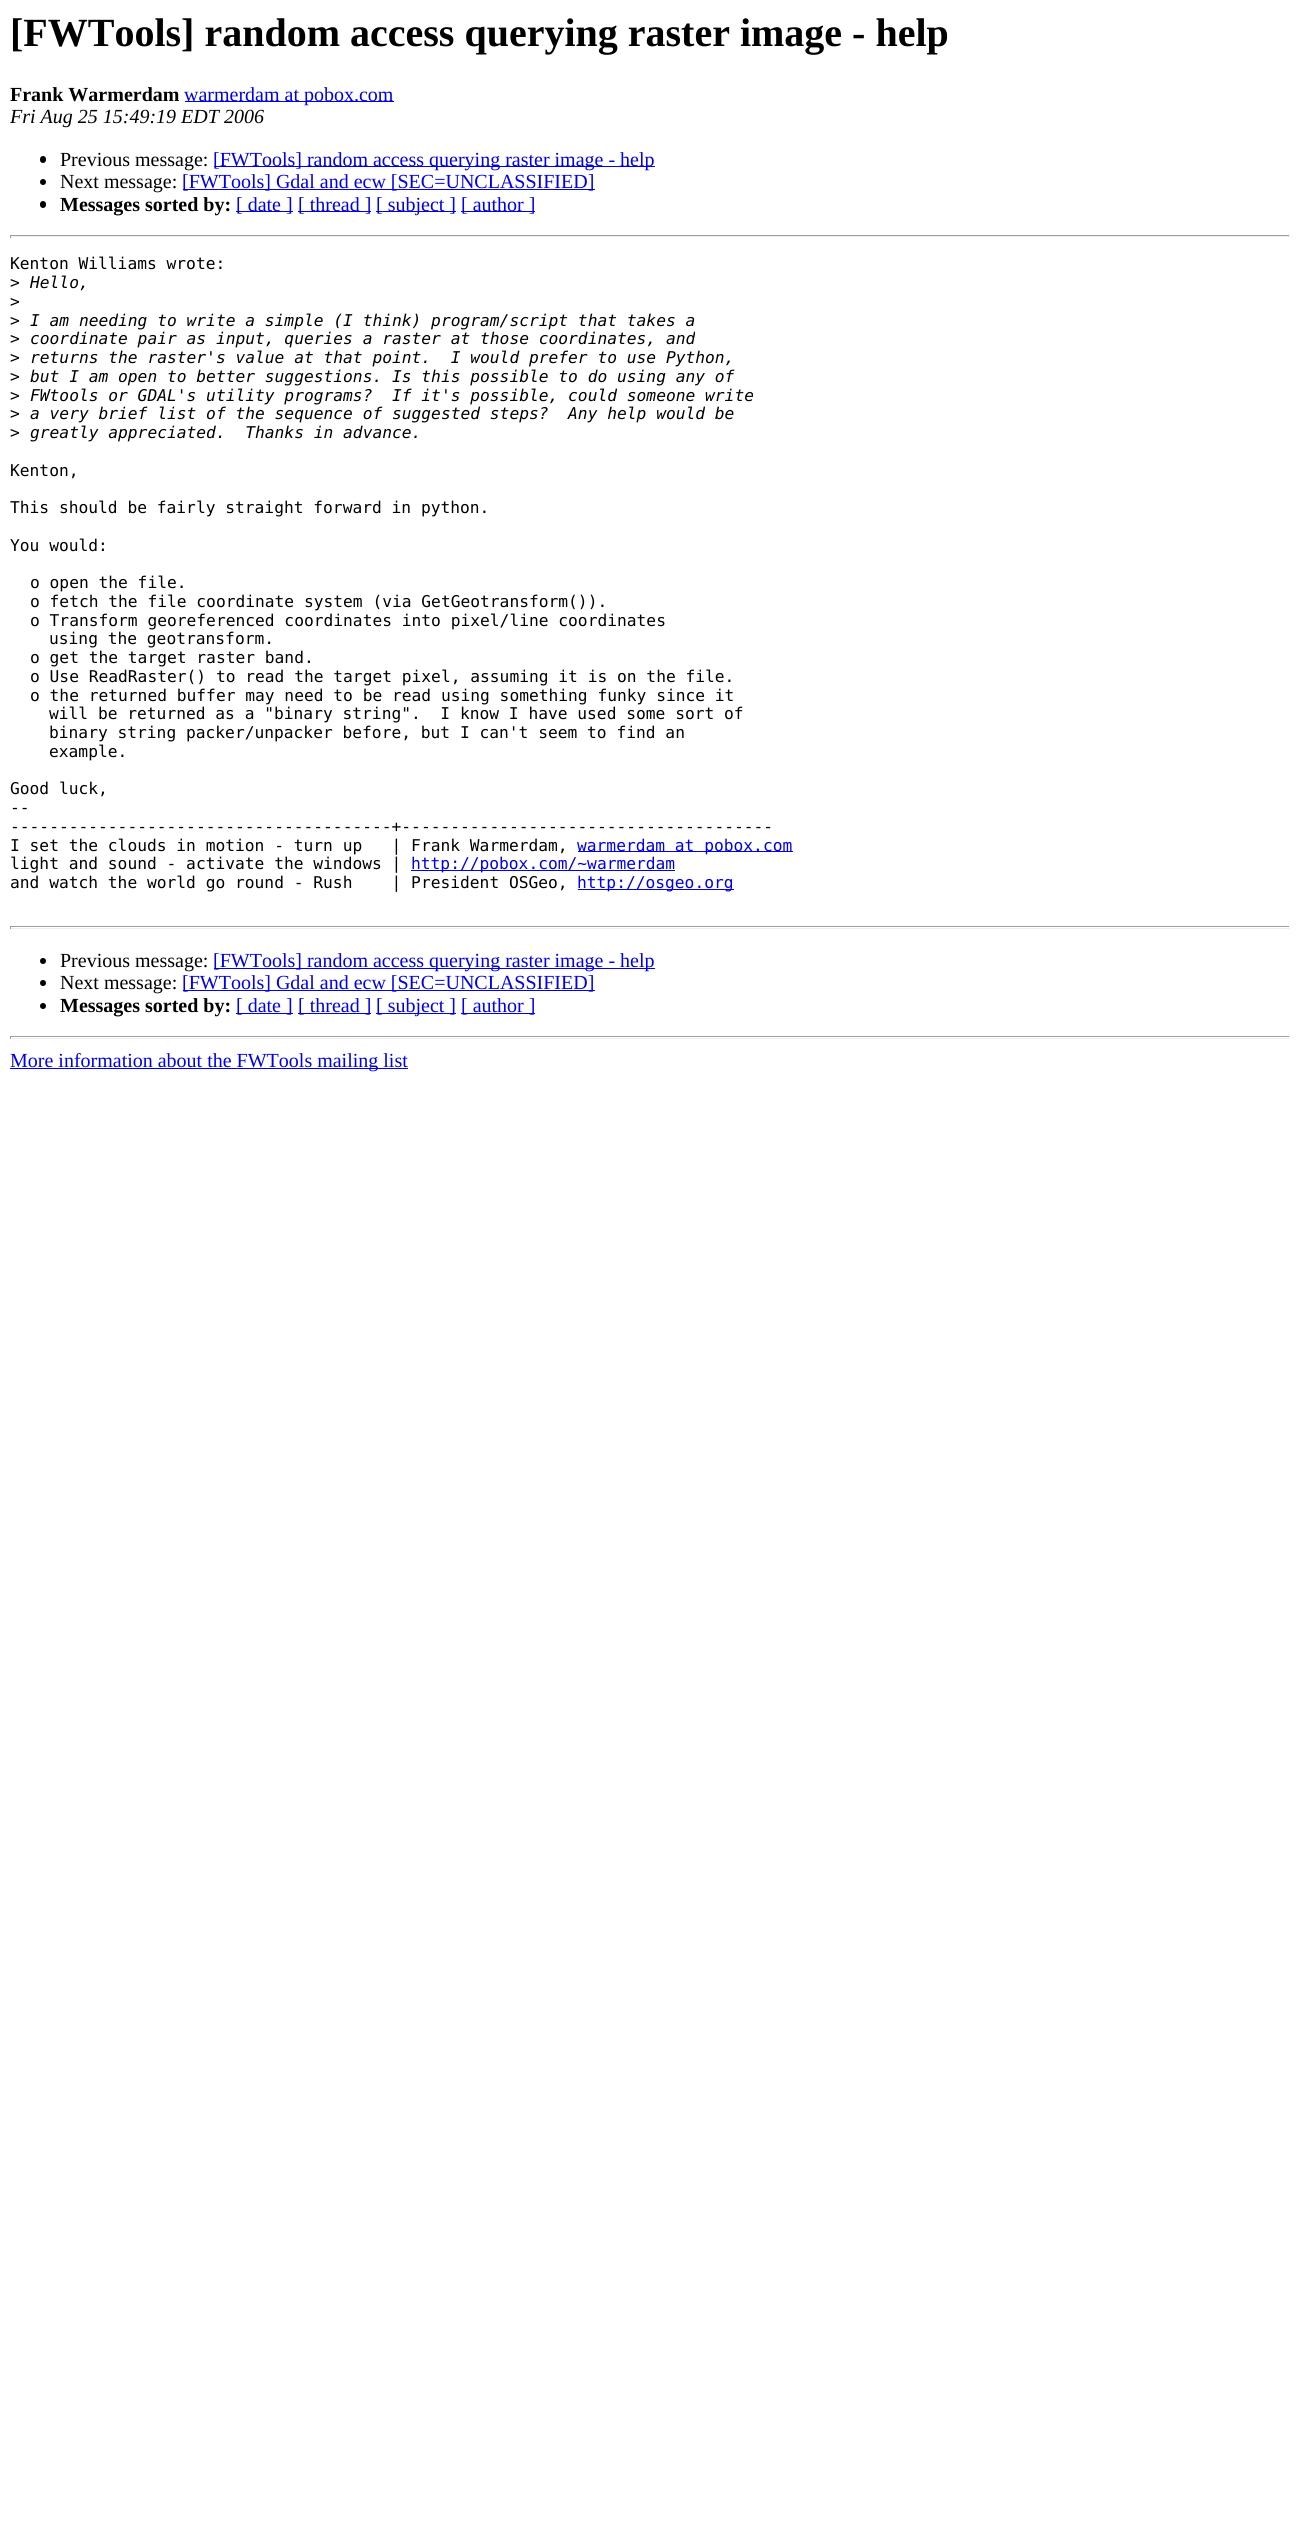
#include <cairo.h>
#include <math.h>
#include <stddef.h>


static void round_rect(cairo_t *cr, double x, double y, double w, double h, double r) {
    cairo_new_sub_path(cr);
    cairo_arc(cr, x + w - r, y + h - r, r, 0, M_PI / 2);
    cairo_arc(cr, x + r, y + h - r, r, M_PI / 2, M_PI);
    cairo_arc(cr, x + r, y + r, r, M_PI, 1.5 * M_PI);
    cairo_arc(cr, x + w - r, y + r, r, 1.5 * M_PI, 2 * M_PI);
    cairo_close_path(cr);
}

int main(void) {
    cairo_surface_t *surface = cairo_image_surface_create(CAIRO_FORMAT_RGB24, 1300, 2521);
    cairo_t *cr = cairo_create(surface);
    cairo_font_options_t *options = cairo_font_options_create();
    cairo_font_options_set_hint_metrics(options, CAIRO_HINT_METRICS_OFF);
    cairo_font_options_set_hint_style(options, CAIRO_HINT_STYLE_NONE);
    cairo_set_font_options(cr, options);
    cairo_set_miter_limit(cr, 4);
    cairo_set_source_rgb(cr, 1, 1, 1);
    cairo_paint(cr);
    cairo_select_font_face(cr, "Liberation Serif", CAIRO_FONT_SLANT_NORMAL, CAIRO_FONT_WEIGHT_BOLD);
    cairo_set_font_size(cr, 40);
    cairo_set_source_rgb(cr, 0, 0, 0);
    cairo_move_to(cr, 10, 46);
    cairo_show_text(cr, "[FWTools] random access querying raster image - help");
    cairo_set_font_size(cr, 20);
    cairo_move_to(cr, 10, 101);
    cairo_show_text(cr, "Frank Warmerdam");
    cairo_set_source_rgb(cr, 0, 0, 0.933);
    cairo_rectangle(cr, 185, 101, 209, 1);
    cairo_fill(cr);
    cairo_select_font_face(cr, "Liberation Serif", CAIRO_FONT_SLANT_NORMAL, CAIRO_FONT_WEIGHT_NORMAL);
    cairo_move_to(cr, 184, 101);
    cairo_show_text(cr, "warmerdam at pobox.com");
    cairo_select_font_face(cr, "Liberation Serif", CAIRO_FONT_SLANT_ITALIC, CAIRO_FONT_WEIGHT_NORMAL);
    cairo_set_source_rgb(cr, 0, 0, 0);
    cairo_move_to(cr, 10, 123);
    cairo_show_text(cr, "Fri Aug 25 15:49:19 EDT 2006");
    round_rect(cr, 40, 156, 6, 7, 3);
    cairo_fill(cr);
    cairo_select_font_face(cr, "Liberation Serif", CAIRO_FONT_SLANT_NORMAL, CAIRO_FONT_WEIGHT_NORMAL);
    cairo_move_to(cr, 60, 166);
    cairo_show_text(cr, "Previous message:");
    cairo_set_source_rgb(cr, 0, 0, 0.933);
    cairo_rectangle(cr, 214, 166, 441, 1);
    cairo_fill(cr);
    cairo_move_to(cr, 213, 166);
    cairo_show_text(cr, "[FWTools] random access querying raster image - help");
    cairo_set_source_rgb(cr, 0, 0, 0);
    cairo_new_path(cr);
    cairo_arc(cr, 43, 182, 3, 0, 2 * M_PI);
    cairo_fill(cr);
    cairo_move_to(cr, 60, 188);
    cairo_show_text(cr, "Next message:");
    cairo_set_source_rgb(cr, 0, 0, 0.933);
    cairo_rectangle(cr, 183, 189, 412, 1);
    cairo_fill(cr);
    cairo_move_to(cr, 182, 188);
    cairo_show_text(cr, "[FWTools] Gdal and ecw [SEC=UNCLASSIFIED]");
    cairo_set_source_rgb(cr, 0, 0, 0);
    round_rect(cr, 40, 201, 6, 7, 3);
    cairo_fill(cr);
    cairo_select_font_face(cr, "Liberation Serif", CAIRO_FONT_SLANT_NORMAL, CAIRO_FONT_WEIGHT_BOLD);
    cairo_move_to(cr, 60, 211);
    cairo_show_text(cr, "Messages sorted by:");
    cairo_set_source_rgb(cr, 0, 0, 0.933);
    cairo_rectangle(cr, 236, 211, 57, 1);
    cairo_fill(cr);
    cairo_select_font_face(cr, "Liberation Serif", CAIRO_FONT_SLANT_NORMAL, CAIRO_FONT_WEIGHT_NORMAL);
    cairo_move_to(cr, 236, 211);
    cairo_show_text(cr, "[ date ]");
    cairo_rectangle(cr, 298, 211, 73, 1);
    cairo_fill(cr);
    cairo_move_to(cr, 298, 211);
    cairo_show_text(cr, "[ thread ]");
    cairo_rectangle(cr, 376, 211, 80, 1);
    cairo_fill(cr);
    cairo_move_to(cr, 376, 211);
    cairo_show_text(cr, "[ subject ]");
    cairo_rectangle(cr, 461, 211, 74, 1);
    cairo_fill(cr);
    cairo_move_to(cr, 461, 211);
    cairo_show_text(cr, "[ author ]");
    cairo_set_source_rgb(cr, 0.624, 0.624, 0.624);
    cairo_rectangle(cr, 10, 235, 1280, 1);
    cairo_fill(cr);
    cairo_set_source_rgb(cr, 0.933, 0.933, 0.933);
    cairo_rectangle(cr, 1289, 235, 1, 3);
    cairo_fill(cr);
    cairo_rectangle(cr, 10, 236, 1280, 1);
    cairo_fill(cr);
    cairo_set_source_rgb(cr, 0.624, 0.624, 0.624);
    cairo_rectangle(cr, 10, 235, 1, 3);
    cairo_fill(cr);
    cairo_select_font_face(cr, "DejaVu Sans Mono", CAIRO_FONT_SLANT_NORMAL, CAIRO_FONT_WEIGHT_NORMAL);
    cairo_set_font_size(cr, 16.25);
    cairo_set_source_rgb(cr, 0, 0, 0);
    cairo_move_to(cr, 10, 269);
    cairo_show_text(cr, "Kenton Williams wrote:");
    cairo_move_to(cr, 10, 288);
    cairo_show_text(cr, ">");
    cairo_select_font_face(cr, "DejaVu Sans Mono", CAIRO_FONT_SLANT_ITALIC, CAIRO_FONT_WEIGHT_NORMAL);
    cairo_move_to(cr, 30, 288);
    cairo_show_text(cr, "Hello,");
    cairo_select_font_face(cr, "DejaVu Sans Mono", CAIRO_FONT_SLANT_NORMAL, CAIRO_FONT_WEIGHT_NORMAL);
    cairo_move_to(cr, 10, 307);
    cairo_show_text(cr, ">");
    cairo_move_to(cr, 10, 326);
    cairo_show_text(cr, ">");
    cairo_select_font_face(cr, "DejaVu Sans Mono", CAIRO_FONT_SLANT_ITALIC, CAIRO_FONT_WEIGHT_NORMAL);
    cairo_move_to(cr, 30, 326);
    cairo_show_text(cr, "I am needing to write a simple (I think) program/script that takes a");
    cairo_select_font_face(cr, "DejaVu Sans Mono", CAIRO_FONT_SLANT_NORMAL, CAIRO_FONT_WEIGHT_NORMAL);
    cairo_move_to(cr, 10, 344);
    cairo_show_text(cr, ">");
    cairo_select_font_face(cr, "DejaVu Sans Mono", CAIRO_FONT_SLANT_ITALIC, CAIRO_FONT_WEIGHT_NORMAL);
    cairo_move_to(cr, 30, 344);
    cairo_show_text(cr, "coordinate pair as input, queries a raster at those coordinates, and");
    cairo_select_font_face(cr, "DejaVu Sans Mono", CAIRO_FONT_SLANT_NORMAL, CAIRO_FONT_WEIGHT_NORMAL);
    cairo_move_to(cr, 10, 363);
    cairo_show_text(cr, ">");
    cairo_select_font_face(cr, "DejaVu Sans Mono", CAIRO_FONT_SLANT_ITALIC, CAIRO_FONT_WEIGHT_NORMAL);
    cairo_move_to(cr, 30, 363);
    cairo_show_text(cr, "returns the raster's value at that point.  I would prefer to use Python,");
    cairo_select_font_face(cr, "DejaVu Sans Mono", CAIRO_FONT_SLANT_NORMAL, CAIRO_FONT_WEIGHT_NORMAL);
    cairo_move_to(cr, 10, 382);
    cairo_show_text(cr, ">");
    cairo_select_font_face(cr, "DejaVu Sans Mono", CAIRO_FONT_SLANT_ITALIC, CAIRO_FONT_WEIGHT_NORMAL);
    cairo_move_to(cr, 30, 382);
    cairo_show_text(cr, "but I am open to better suggestions. Is this possible to do using any of");
    cairo_select_font_face(cr, "DejaVu Sans Mono", CAIRO_FONT_SLANT_NORMAL, CAIRO_FONT_WEIGHT_NORMAL);
    cairo_move_to(cr, 10, 401);
    cairo_show_text(cr, ">");
    cairo_select_font_face(cr, "DejaVu Sans Mono", CAIRO_FONT_SLANT_ITALIC, CAIRO_FONT_WEIGHT_NORMAL);
    cairo_move_to(cr, 30, 401);
    cairo_show_text(cr, "FWtools or GDAL's utility programs?  If it's possible, could someone write");
    cairo_select_font_face(cr, "DejaVu Sans Mono", CAIRO_FONT_SLANT_NORMAL, CAIRO_FONT_WEIGHT_NORMAL);
    cairo_move_to(cr, 10, 419);
    cairo_show_text(cr, ">");
    cairo_select_font_face(cr, "DejaVu Sans Mono", CAIRO_FONT_SLANT_ITALIC, CAIRO_FONT_WEIGHT_NORMAL);
    cairo_move_to(cr, 30, 419);
    cairo_show_text(cr, "a very brief list of the sequence of suggested steps?  Any help would be");
    cairo_select_font_face(cr, "DejaVu Sans Mono", CAIRO_FONT_SLANT_NORMAL, CAIRO_FONT_WEIGHT_NORMAL);
    cairo_move_to(cr, 10, 438);
    cairo_show_text(cr, ">");
    cairo_select_font_face(cr, "DejaVu Sans Mono", CAIRO_FONT_SLANT_ITALIC, CAIRO_FONT_WEIGHT_NORMAL);
    cairo_move_to(cr, 30, 438);
    cairo_show_text(cr, "greatly appreciated.  Thanks in advance.");
    cairo_select_font_face(cr, "DejaVu Sans Mono", CAIRO_FONT_SLANT_NORMAL, CAIRO_FONT_WEIGHT_NORMAL);
    cairo_move_to(cr, 10, 476);
    cairo_show_text(cr, "Kenton,");
    cairo_move_to(cr, 10, 513);
    cairo_show_text(cr, "This should be fairly straight forward in python.");
    cairo_move_to(cr, 10, 551);
    cairo_show_text(cr, "You would:");
    cairo_move_to(cr, 30, 588);
    cairo_show_text(cr, "o open the file.");
    cairo_move_to(cr, 30, 607);
    cairo_show_text(cr, "o fetch the file coordinate system (via GetGeotransform()).");
    cairo_move_to(cr, 30, 626);
    cairo_show_text(cr, "o Transform georeferenced coordinates into pixel/line coordinates");
    cairo_move_to(cr, 49, 644);
    cairo_show_text(cr, "using the geotransform.");
    cairo_move_to(cr, 30, 663);
    cairo_show_text(cr, "o get the target raster band.");
    cairo_move_to(cr, 30, 682);
    cairo_show_text(cr, "o Use ReadRaster() to read the target pixel, assuming it is on the file.");
    cairo_move_to(cr, 30, 701);
    cairo_show_text(cr, "o the returned buffer may need to be read using something funky since it");
    cairo_move_to(cr, 49, 719);
    cairo_show_text(cr, "will be returned as a \"binary string\".  I know I have used some sort of");
    cairo_move_to(cr, 49, 738);
    cairo_show_text(cr, "binary string packer/unpacker before, but I can't seem to find an");
    cairo_move_to(cr, 49, 757);
    cairo_show_text(cr, "example.");
    cairo_move_to(cr, 10, 794);
    cairo_show_text(cr, "Good luck,");
    cairo_move_to(cr, 10, 813);
    cairo_show_text(cr, "--");
    cairo_move_to(cr, 10, 832);
    cairo_show_text(cr, "---------------------------------------+--------------------------------------");
    cairo_move_to(cr, 10, 851);
    cairo_show_text(cr, "I set the clouds in motion - turn up   | Frank Warmerdam,");
    cairo_set_source_rgb(cr, 0, 0, 0.933);
    cairo_rectangle(cr, 578, 851, 215, 1);
    cairo_fill(cr);
    cairo_move_to(cr, 577, 851);
    cairo_show_text(cr, "warmerdam at pobox.com");
    cairo_set_source_rgb(cr, 0, 0, 0);
    cairo_move_to(cr, 10, 869);
    cairo_show_text(cr, "light and sound - activate the windows |");
    cairo_set_source_rgb(cr, 0, 0, 0.933);
    cairo_rectangle(cr, 411, 870, 264, 1);
    cairo_fill(cr);
    cairo_move_to(cr, 411, 869);
    cairo_show_text(cr, "http://pobox.com/~warmerdam");
    cairo_set_source_rgb(cr, 0, 0, 0);
    cairo_move_to(cr, 10, 888);
    cairo_show_text(cr, "and watch the world go round - Rush    | President OSGeo,");
    cairo_set_source_rgb(cr, 0, 0, 0.933);
    cairo_rectangle(cr, 578, 889, 156, 1);
    cairo_fill(cr);
    cairo_move_to(cr, 577, 888);
    cairo_show_text(cr, "http://osgeo.org");
    cairo_set_source_rgb(cr, 0.624, 0.624, 0.624);
    cairo_rectangle(cr, 10, 926, 1280, 1);
    cairo_fill(cr);
    cairo_set_source_rgb(cr, 0.933, 0.933, 0.933);
    cairo_rectangle(cr, 1289, 926, 1, 3);
    cairo_fill(cr);
    cairo_rectangle(cr, 10, 928, 1280, 1);
    cairo_fill(cr);
    cairo_set_source_rgb(cr, 0.624, 0.624, 0.624);
    cairo_rectangle(cr, 10, 926, 1, 3);
    cairo_fill(cr);
    cairo_set_source_rgb(cr, 0, 0, 0);
    cairo_arc(cr, 43, 961, 3, 0, 2 * M_PI);
    cairo_fill(cr);
    cairo_select_font_face(cr, "Liberation Serif", CAIRO_FONT_SLANT_NORMAL, CAIRO_FONT_WEIGHT_NORMAL);
    cairo_set_font_size(cr, 20);
    cairo_move_to(cr, 60, 967);
    cairo_show_text(cr, "Previous message:");
    cairo_set_source_rgb(cr, 0, 0, 0.933);
    cairo_rectangle(cr, 214, 968, 441, 1);
    cairo_fill(cr);
    cairo_move_to(cr, 213, 967);
    cairo_show_text(cr, "[FWTools] random access querying raster image - help");
    cairo_set_source_rgb(cr, 0, 0, 0);
    cairo_new_path(cr);
    cairo_arc(cr, 43, 983, 3, 0, 2 * M_PI);
    cairo_fill(cr);
    cairo_move_to(cr, 60, 989);
    cairo_show_text(cr, "Next message:");
    cairo_set_source_rgb(cr, 0, 0, 0.933);
    cairo_rectangle(cr, 183, 990, 412, 1);
    cairo_fill(cr);
    cairo_move_to(cr, 182, 989);
    cairo_show_text(cr, "[FWTools] Gdal and ecw [SEC=UNCLASSIFIED]");
    cairo_set_source_rgb(cr, 0, 0, 0);
    cairo_new_path(cr);
    cairo_arc(cr, 43, 1006, 3, 0, 2 * M_PI);
    cairo_fill(cr);
    cairo_select_font_face(cr, "Liberation Serif", CAIRO_FONT_SLANT_NORMAL, CAIRO_FONT_WEIGHT_BOLD);
    cairo_move_to(cr, 60, 1012);
    cairo_show_text(cr, "Messages sorted by:");
    cairo_set_source_rgb(cr, 0, 0, 0.933);
    cairo_rectangle(cr, 236, 1013, 57, 1);
    cairo_fill(cr);
    cairo_select_font_face(cr, "Liberation Serif", CAIRO_FONT_SLANT_NORMAL, CAIRO_FONT_WEIGHT_NORMAL);
    cairo_move_to(cr, 236, 1012);
    cairo_show_text(cr, "[ date ]");
    cairo_rectangle(cr, 298, 1013, 73, 1);
    cairo_fill(cr);
    cairo_move_to(cr, 298, 1012);
    cairo_show_text(cr, "[ thread ]");
    cairo_rectangle(cr, 376, 1013, 80, 1);
    cairo_fill(cr);
    cairo_move_to(cr, 376, 1012);
    cairo_show_text(cr, "[ subject ]");
    cairo_rectangle(cr, 461, 1013, 74, 1);
    cairo_fill(cr);
    cairo_move_to(cr, 461, 1012);
    cairo_show_text(cr, "[ author ]");
    cairo_set_source_rgb(cr, 0.624, 0.624, 0.624);
    cairo_rectangle(cr, 10, 1036, 1280, 1);
    cairo_fill(cr);
    cairo_set_source_rgb(cr, 0.933, 0.933, 0.933);
    cairo_rectangle(cr, 1289, 1036, 1, 3);
    cairo_fill(cr);
    cairo_rectangle(cr, 10, 1038, 1280, 1);
    cairo_fill(cr);
    cairo_set_source_rgb(cr, 0.624, 0.624, 0.624);
    cairo_rectangle(cr, 10, 1036, 1, 3);
    cairo_fill(cr);
    cairo_set_source_rgb(cr, 0, 0, 0.933);
    cairo_rectangle(cr, 10, 1068, 398, 1);
    cairo_fill(cr);
    cairo_move_to(cr, 10, 1067);
    cairo_show_text(cr, "More information about the FWTools mailing list");
    cairo_surface_write_to_png(surface, "page.png");
    cairo_font_options_destroy(options);
    cairo_destroy(cr);
    cairo_surface_destroy(surface);
    return 0;
}
